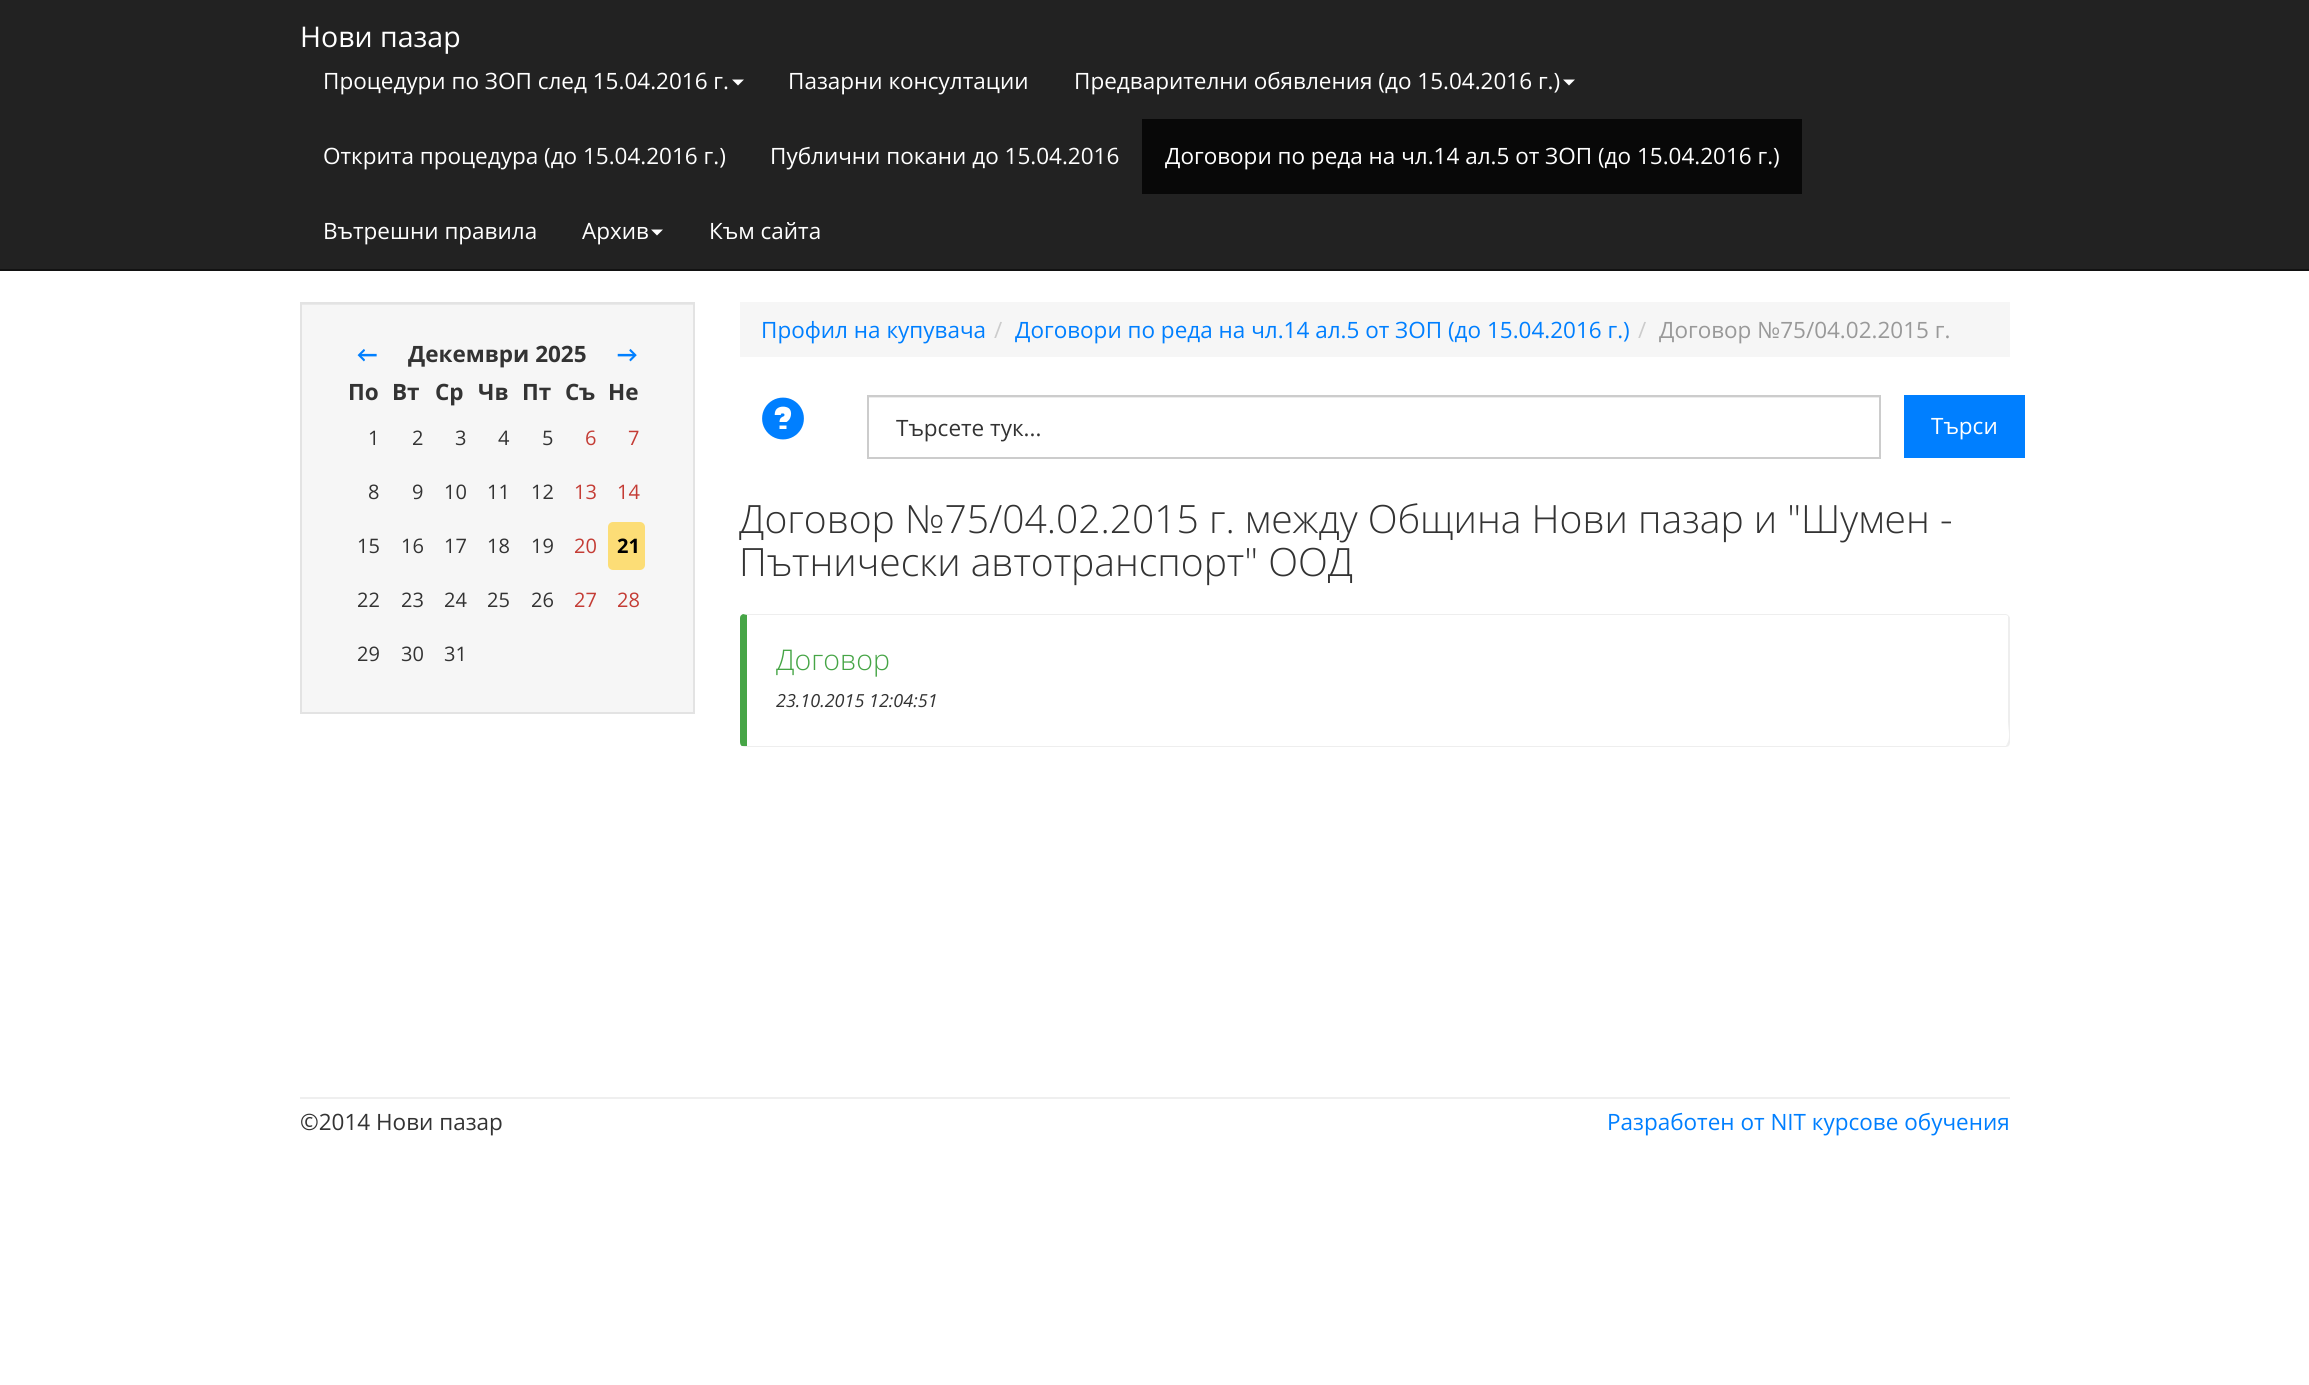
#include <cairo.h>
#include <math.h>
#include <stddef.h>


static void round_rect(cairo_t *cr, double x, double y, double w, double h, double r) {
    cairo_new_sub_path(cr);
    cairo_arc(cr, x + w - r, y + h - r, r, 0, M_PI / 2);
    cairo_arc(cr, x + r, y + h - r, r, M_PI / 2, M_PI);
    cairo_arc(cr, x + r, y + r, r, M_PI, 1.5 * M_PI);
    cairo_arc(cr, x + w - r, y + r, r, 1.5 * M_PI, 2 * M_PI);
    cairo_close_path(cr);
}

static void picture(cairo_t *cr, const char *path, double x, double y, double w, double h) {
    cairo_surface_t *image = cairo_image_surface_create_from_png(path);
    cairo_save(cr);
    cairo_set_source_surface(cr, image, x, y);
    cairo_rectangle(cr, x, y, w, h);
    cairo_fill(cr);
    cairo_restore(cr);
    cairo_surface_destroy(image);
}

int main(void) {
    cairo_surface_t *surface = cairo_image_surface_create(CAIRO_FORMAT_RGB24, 2309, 1385);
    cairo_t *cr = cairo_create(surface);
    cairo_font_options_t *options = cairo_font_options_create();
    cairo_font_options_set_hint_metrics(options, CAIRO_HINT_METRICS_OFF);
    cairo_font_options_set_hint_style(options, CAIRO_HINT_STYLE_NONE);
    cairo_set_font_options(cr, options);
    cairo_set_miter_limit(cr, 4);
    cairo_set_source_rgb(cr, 1, 1, 1);
    cairo_paint(cr);
    cairo_set_source_rgb(cr, 0.133, 0.133, 0.133);
    cairo_rectangle(cr, 0, 0, 2309, 269);
    cairo_fill(cr);
    cairo_set_source_rgb(cr, 0.071, 0.071, 0.071);
    cairo_rectangle(cr, 0, 269, 2309, 2);
    cairo_fill(cr);
    cairo_select_font_face(cr, "Open Sans", CAIRO_FONT_SLANT_NORMAL, CAIRO_FONT_WEIGHT_NORMAL);
    cairo_set_font_size(cr, 28.5);
    cairo_set_source_rgb(cr, 1, 1, 1);
    cairo_move_to(cr, 300, 47);
    cairo_show_text(cr, "Нови пазар");
    cairo_set_font_size(cr, 22.5);
    cairo_move_to(cr, 323, 89);
    cairo_show_text(cr, "Процедури по ЗОП след 15.04.2016 г.");
    cairo_new_path(cr);
    cairo_move_to(cr, 732, 79.5);
    cairo_line_to(cr, 744, 79.5);
    cairo_line_to(cr, 738, 85.5);
    cairo_close_path(cr);
    cairo_fill(cr);
    cairo_move_to(cr, 788, 89);
    cairo_show_text(cr, "Пазарни консултации");
    cairo_move_to(cr, 1074, 89);
    cairo_show_text(cr, "Предварителни обявления (до 15.04.2016 г.)");
    cairo_new_path(cr);
    cairo_move_to(cr, 1563, 79.5);
    cairo_line_to(cr, 1575, 79.5);
    cairo_line_to(cr, 1569, 85.5);
    cairo_close_path(cr);
    cairo_fill(cr);
    cairo_move_to(cr, 323, 164);
    cairo_show_text(cr, "Открита процедура (до 15.04.2016 г.)");
    cairo_move_to(cr, 770, 164);
    cairo_show_text(cr, "Публични покани до 15.04.2016");
    cairo_set_source_rgb(cr, 0.035, 0.035, 0.035);
    cairo_rectangle(cr, 1142, 119, 660, 75);
    cairo_fill(cr);
    cairo_set_source_rgb(cr, 1, 1, 1);
    cairo_move_to(cr, 1165, 164);
    cairo_show_text(cr, "Договори по реда на чл.14 ал.5 от ЗОП (до 15.04.2016 г.)");
    cairo_move_to(cr, 323, 239);
    cairo_show_text(cr, "Вътрешни правила");
    cairo_move_to(cr, 582, 239);
    cairo_show_text(cr, "Архив");
    cairo_new_path(cr);
    cairo_move_to(cr, 651, 229.5);
    cairo_line_to(cr, 663, 229.5);
    cairo_line_to(cr, 657, 235.5);
    cairo_close_path(cr);
    cairo_fill(cr);
    cairo_move_to(cr, 709, 239);
    cairo_show_text(cr, "Към сайта");
    cairo_set_source_rgb(cr, 0.961, 0.961, 0.961);
    cairo_rectangle(cr, 302, 305, 391, 407);
    cairo_fill(cr);
    cairo_set_source_rgb(cr, 0.914, 0.914, 0.914);
    cairo_rectangle(cr, 302, 304, 391, 1);
    cairo_fill(cr);
    cairo_rectangle(cr, 301, 303, 393, 410);
    cairo_set_source_rgb(cr, 0.89, 0.89, 0.89);
    cairo_stroke(cr);
    cairo_select_font_face(cr, "Carlito", CAIRO_FONT_SLANT_NORMAL, CAIRO_FONT_WEIGHT_BOLD);
    cairo_set_source_rgb(cr, 0, 0.498, 1);
    cairo_move_to(cr, 357, 362);
    cairo_show_text(cr, "←");
    cairo_select_font_face(cr, "Open Sans", CAIRO_FONT_SLANT_NORMAL, CAIRO_FONT_WEIGHT_BOLD);
    cairo_set_source_rgb(cr, 0.2, 0.2, 0.2);
    cairo_move_to(cr, 408, 362);
    cairo_show_text(cr, "Декември 2025");
    cairo_select_font_face(cr, "Carlito", CAIRO_FONT_SLANT_NORMAL, CAIRO_FONT_WEIGHT_BOLD);
    cairo_set_source_rgb(cr, 0, 0.498, 1);
    cairo_move_to(cr, 617, 362);
    cairo_show_text(cr, "→");
    cairo_select_font_face(cr, "Open Sans", CAIRO_FONT_SLANT_NORMAL, CAIRO_FONT_WEIGHT_BOLD);
    cairo_set_source_rgb(cr, 0.2, 0.2, 0.2);
    cairo_move_to(cr, 348, 400);
    cairo_show_text(cr, "По");
    cairo_move_to(cr, 392, 400);
    cairo_show_text(cr, "Вт");
    cairo_move_to(cr, 435, 400);
    cairo_show_text(cr, "Ср");
    cairo_move_to(cr, 478, 400);
    cairo_show_text(cr, "Чв");
    cairo_move_to(cr, 522, 400);
    cairo_show_text(cr, "Пт");
    cairo_move_to(cr, 565, 400);
    cairo_show_text(cr, "Съ");
    cairo_move_to(cr, 608, 400);
    cairo_show_text(cr, "Не");
    cairo_select_font_face(cr, "Open Sans", CAIRO_FONT_SLANT_NORMAL, CAIRO_FONT_WEIGHT_NORMAL);
    cairo_set_font_size(cr, 20);
    cairo_move_to(cr, 368, 445);
    cairo_show_text(cr, "1");
    cairo_move_to(cr, 412, 445);
    cairo_show_text(cr, "2");
    cairo_move_to(cr, 455, 445);
    cairo_show_text(cr, "3");
    cairo_move_to(cr, 498, 445);
    cairo_show_text(cr, "4");
    cairo_move_to(cr, 542, 445);
    cairo_show_text(cr, "5");
    cairo_set_source_rgb(cr, 0.769, 0.235, 0.208);
    cairo_move_to(cr, 585, 445);
    cairo_show_text(cr, "6");
    cairo_move_to(cr, 628, 445);
    cairo_show_text(cr, "7");
    cairo_set_source_rgb(cr, 0.2, 0.2, 0.2);
    cairo_move_to(cr, 368, 499);
    cairo_show_text(cr, "8");
    cairo_move_to(cr, 412, 499);
    cairo_show_text(cr, "9");
    cairo_move_to(cr, 444, 499);
    cairo_show_text(cr, "10");
    cairo_move_to(cr, 487, 499);
    cairo_show_text(cr, "11");
    cairo_move_to(cr, 531, 499);
    cairo_show_text(cr, "12");
    cairo_set_source_rgb(cr, 0.769, 0.235, 0.208);
    cairo_move_to(cr, 574, 499);
    cairo_show_text(cr, "13");
    cairo_move_to(cr, 617, 499);
    cairo_show_text(cr, "14");
    cairo_set_source_rgb(cr, 0.2, 0.2, 0.2);
    cairo_move_to(cr, 357, 553);
    cairo_show_text(cr, "15");
    cairo_move_to(cr, 401, 553);
    cairo_show_text(cr, "16");
    cairo_move_to(cr, 444, 553);
    cairo_show_text(cr, "17");
    cairo_move_to(cr, 487, 553);
    cairo_show_text(cr, "18");
    cairo_move_to(cr, 531, 553);
    cairo_show_text(cr, "19");
    cairo_set_source_rgb(cr, 0.769, 0.235, 0.208);
    cairo_move_to(cr, 574, 553);
    cairo_show_text(cr, "20");
    cairo_set_source_rgb(cr, 0.988, 0.867, 0.463);
    round_rect(cr, 608, 522, 37, 48, 5);
    cairo_fill(cr);
    cairo_select_font_face(cr, "Open Sans", CAIRO_FONT_SLANT_NORMAL, CAIRO_FONT_WEIGHT_BOLD);
    cairo_set_source_rgb(cr, 0, 0, 0);
    cairo_move_to(cr, 617, 553);
    cairo_show_text(cr, "21");
    cairo_select_font_face(cr, "Open Sans", CAIRO_FONT_SLANT_NORMAL, CAIRO_FONT_WEIGHT_NORMAL);
    cairo_set_source_rgb(cr, 0.2, 0.2, 0.2);
    cairo_move_to(cr, 357, 607);
    cairo_show_text(cr, "22");
    cairo_move_to(cr, 401, 607);
    cairo_show_text(cr, "23");
    cairo_move_to(cr, 444, 607);
    cairo_show_text(cr, "24");
    cairo_move_to(cr, 487, 607);
    cairo_show_text(cr, "25");
    cairo_move_to(cr, 531, 607);
    cairo_show_text(cr, "26");
    cairo_set_source_rgb(cr, 0.769, 0.235, 0.208);
    cairo_move_to(cr, 574, 607);
    cairo_show_text(cr, "27");
    cairo_move_to(cr, 617, 607);
    cairo_show_text(cr, "28");
    cairo_set_source_rgb(cr, 0.2, 0.2, 0.2);
    cairo_move_to(cr, 357, 661);
    cairo_show_text(cr, "29");
    cairo_move_to(cr, 401, 661);
    cairo_show_text(cr, "30");
    cairo_move_to(cr, 444, 661);
    cairo_show_text(cr, "31");
    cairo_set_source_rgb(cr, 0.961, 0.961, 0.961);
    cairo_rectangle(cr, 740, 302, 1270, 55);
    cairo_fill(cr);
    cairo_set_font_size(cr, 22.5);
    cairo_set_source_rgb(cr, 0, 0.498, 1);
    cairo_move_to(cr, 761, 338);
    cairo_show_text(cr, "Профил на купувача");
    cairo_set_source_rgb(cr, 0.8, 0.8, 0.8);
    cairo_move_to(cr, 994, 338);
    cairo_show_text(cr, "/");
    cairo_set_source_rgb(cr, 0, 0.498, 1);
    cairo_move_to(cr, 1015, 338);
    cairo_show_text(cr, "Договори по реда на чл.14 ал.5 от ЗОП (до 15.04.2016 г.)");
    cairo_set_source_rgb(cr, 0.8, 0.8, 0.8);
    cairo_move_to(cr, 1638, 338);
    cairo_show_text(cr, "/");
    cairo_set_source_rgb(cr, 0.6, 0.6, 0.6);
    cairo_move_to(cr, 1659, 338);
    cairo_show_text(cr, "Договор №75/04.02.2015 г.");
    picture(cr, "img1.png", 762, 397, 42, 43);
    cairo_set_source_rgb(cr, 0.925, 0.925, 0.925);
    cairo_rectangle(cr, 869, 397, 1011, 1);
    cairo_fill(cr);
    cairo_rectangle(cr, 868, 396, 1012, 62);
    cairo_set_source_rgb(cr, 0.8, 0.8, 0.8);
    cairo_stroke(cr);
    cairo_set_source_rgb(cr, 0.2, 0.2, 0.2);
    cairo_move_to(cr, 896, 436);
    cairo_show_text(cr, "Търсете тук...");
    cairo_set_source_rgb(cr, 0, 0.498, 1);
    cairo_rectangle(cr, 1904, 395, 121, 63);
    cairo_fill(cr);
    cairo_set_source_rgb(cr, 1, 1, 1);
    cairo_move_to(cr, 1931, 434);
    cairo_show_text(cr, "Търси");
    cairo_select_font_face(cr, "Open Sans Light", CAIRO_FONT_SLANT_NORMAL, CAIRO_FONT_WEIGHT_NORMAL);
    cairo_set_font_size(cr, 39);
    cairo_set_source_rgb(cr, 0.2, 0.2, 0.2);
    cairo_move_to(cr, 739, 533);
    cairo_show_text(cr, "Договор №75/04.02.2015 г. между Община Нови пазар и \"Шумен -");
    cairo_move_to(cr, 739, 576);
    cairo_show_text(cr, "Пътнически автотранспорт\" ООД");
    cairo_set_source_rgb(cr, 0.933, 0.933, 0.933);
    cairo_new_path(cr);
    cairo_move_to(cr, 744, 614);
    cairo_line_to(cr, 743, 614);
    cairo_line_to(cr, 747, 615);
    cairo_line_to(cr, 2006, 615);
    cairo_line_to(cr, 2008, 616);
    cairo_line_to(cr, 2008, 615);
    cairo_line_to(cr, 2006, 614);
    cairo_close_path(cr);
    cairo_fill(cr);
    cairo_new_path(cr);
    cairo_move_to(cr, 2008, 615);
    cairo_curve_to(cr, 2009, 616, 2010, 617, 2010, 618);
    cairo_line_to(cr, 2010, 742);
    cairo_curve_to(cr, 2010, 744, 2009, 745, 2009, 746);
    cairo_line_to(cr, 2007, 744);
    cairo_curve_to(cr, 2011, 737, 2008, 729, 2008, 721);
    cairo_line_to(cr, 2008, 618);
    cairo_line_to(cr, 2008, 616);
    cairo_close_path(cr);
    cairo_fill(cr);
    cairo_new_path(cr);
    cairo_move_to(cr, 744, 747);
    cairo_line_to(cr, 2006, 747);
    cairo_line_to(cr, 2009, 746);
    cairo_line_to(cr, 2007, 744);
    cairo_line_to(cr, 2006, 746);
    cairo_line_to(cr, 747, 746);
    cairo_line_to(cr, 742, 746);
    cairo_close_path(cr);
    cairo_fill(cr);
    cairo_set_source_rgb(cr, 0.275, 0.647, 0.275);
    cairo_new_path(cr);
    cairo_move_to(cr, 747, 615);
    cairo_line_to(cr, 743, 614);
    cairo_curve_to(cr, 741, 615, 740, 616, 740, 618);
    cairo_line_to(cr, 740, 742);
    cairo_curve_to(cr, 740, 744, 741, 746, 742, 746);
    cairo_line_to(cr, 747, 746);
    cairo_close_path(cr);
    cairo_fill(cr);
    cairo_set_font_size(cr, 28.5);
    cairo_move_to(cr, 776, 670);
    cairo_show_text(cr, "Договор");
    cairo_select_font_face(cr, "Open Sans", CAIRO_FONT_SLANT_ITALIC, CAIRO_FONT_WEIGHT_NORMAL);
    cairo_set_font_size(cr, 18);
    cairo_set_source_rgb(cr, 0.2, 0.2, 0.2);
    cairo_move_to(cr, 776, 707);
    cairo_show_text(cr, "23.10.2015 12:04:51");
    cairo_set_source_rgb(cr, 0.937, 0.937, 0.937);
    cairo_rectangle(cr, 300, 1097, 1710, 2);
    cairo_fill(cr);
    cairo_select_font_face(cr, "Open Sans", CAIRO_FONT_SLANT_NORMAL, CAIRO_FONT_WEIGHT_NORMAL);
    cairo_set_font_size(cr, 22.5);
    cairo_set_source_rgb(cr, 0.2, 0.2, 0.2);
    cairo_move_to(cr, 300, 1130);
    cairo_show_text(cr, "©2014 Нови пазар");
    cairo_set_source_rgb(cr, 0, 0.498, 1);
    cairo_move_to(cr, 1607, 1130);
    cairo_show_text(cr, "Разработен от NIT курсове обучения");
    cairo_surface_write_to_png(surface, "page.png");
    cairo_font_options_destroy(options);
    cairo_destroy(cr);
    cairo_surface_destroy(surface);
    return 0;
}
